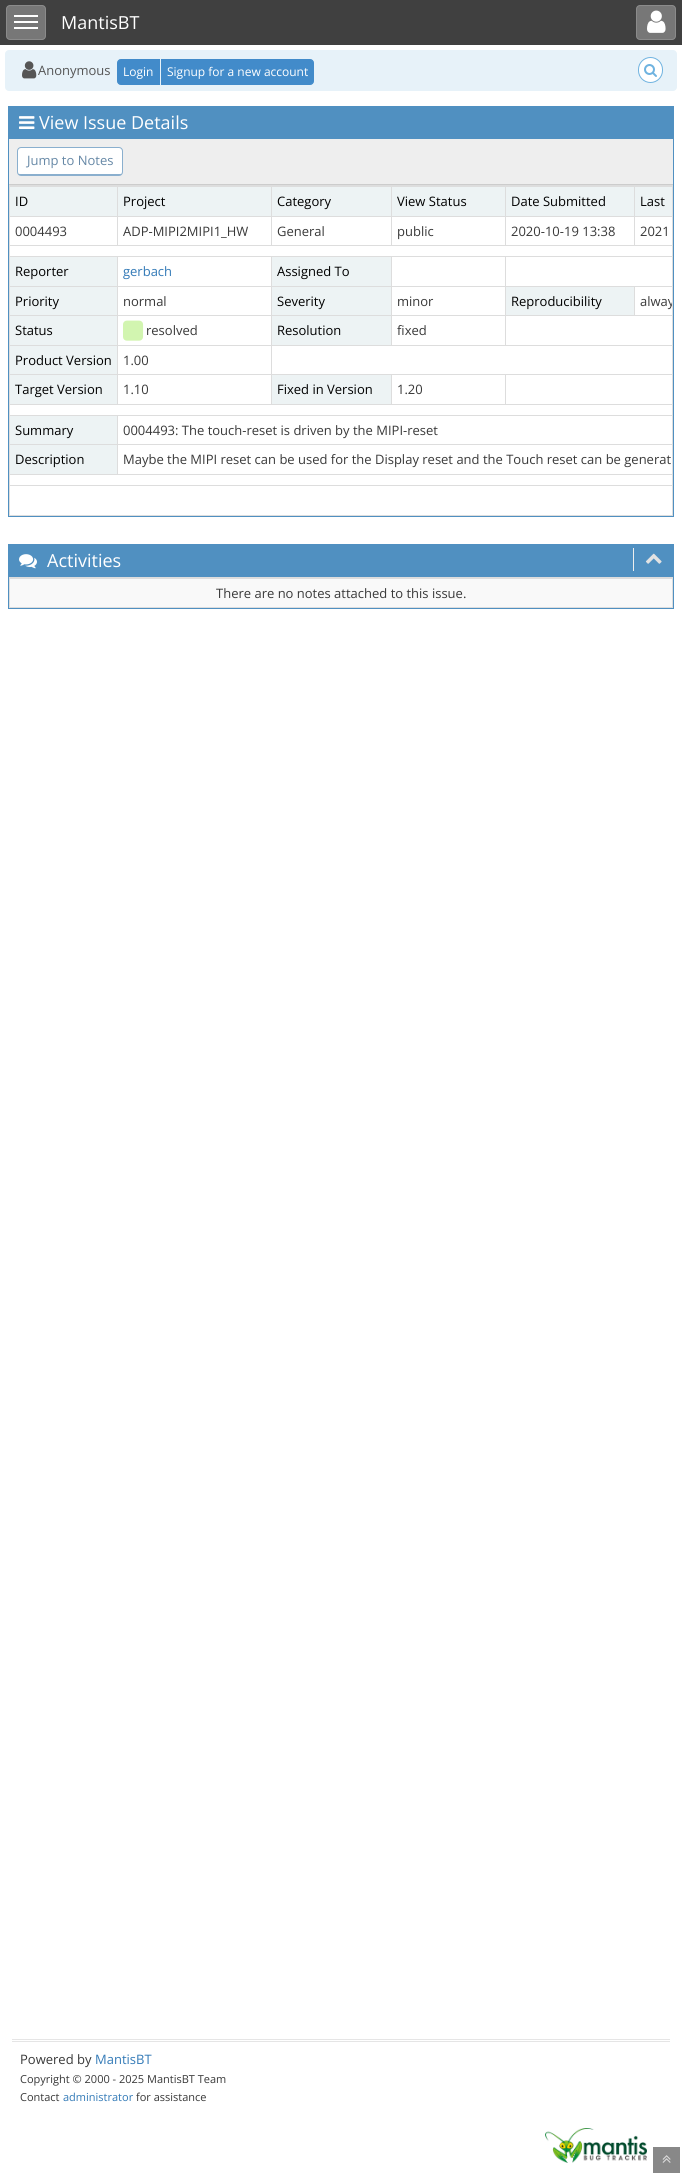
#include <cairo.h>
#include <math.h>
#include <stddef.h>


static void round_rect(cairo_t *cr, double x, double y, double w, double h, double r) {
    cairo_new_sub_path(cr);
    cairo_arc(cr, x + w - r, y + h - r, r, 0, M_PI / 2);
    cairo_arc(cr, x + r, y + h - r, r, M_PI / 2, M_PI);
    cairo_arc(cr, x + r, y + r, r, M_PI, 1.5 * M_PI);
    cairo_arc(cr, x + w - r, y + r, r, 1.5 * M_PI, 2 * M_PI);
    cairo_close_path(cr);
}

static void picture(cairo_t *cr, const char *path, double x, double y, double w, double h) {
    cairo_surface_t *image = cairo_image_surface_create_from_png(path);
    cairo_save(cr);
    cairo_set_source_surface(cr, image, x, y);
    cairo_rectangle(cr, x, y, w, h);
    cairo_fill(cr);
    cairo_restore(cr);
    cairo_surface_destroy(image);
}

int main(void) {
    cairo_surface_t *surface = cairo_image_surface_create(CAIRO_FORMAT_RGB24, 682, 2175);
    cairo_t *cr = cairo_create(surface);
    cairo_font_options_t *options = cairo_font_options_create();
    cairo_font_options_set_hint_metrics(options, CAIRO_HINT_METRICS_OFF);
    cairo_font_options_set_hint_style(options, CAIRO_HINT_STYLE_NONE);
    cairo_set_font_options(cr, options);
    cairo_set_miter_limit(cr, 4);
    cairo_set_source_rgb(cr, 1, 1, 1);
    cairo_paint(cr);
    cairo_set_source_rgb(cr, 0.251, 0.251, 0.251);
    cairo_rectangle(cr, 0, 0, 682, 45);
    cairo_fill(cr);
    cairo_set_source_rgb(cr, 0.467, 0.467, 0.467);
    round_rect(cr, 6, 5, 40, 35, 4);
    cairo_fill(cr);
    round_rect(cr, 6.5, 5.5, 39, 34, 3.5);
    cairo_set_source_rgba(cr, 1, 1, 1, 0.15);
    cairo_set_line_width(cr, 1);
    cairo_stroke(cr);
    cairo_set_source_rgb(cr, 1, 1, 1);
    cairo_rectangle(cr, 14, 15, 24, 2);
    cairo_fill(cr);
    cairo_rectangle(cr, 14, 21, 24, 2);
    cairo_fill(cr);
    cairo_rectangle(cr, 14, 27, 24, 2);
    cairo_fill(cr);
    cairo_select_font_face(cr, "Open Sans", CAIRO_FONT_SLANT_NORMAL, CAIRO_FONT_WEIGHT_NORMAL);
    cairo_set_font_size(cr, 18);
    cairo_move_to(cr, 61, 29);
    cairo_show_text(cr, "MantisBT");
    cairo_set_source_rgb(cr, 0.467, 0.467, 0.467);
    round_rect(cr, 636, 5, 40, 35, 4);
    cairo_fill(cr);
    round_rect(cr, 636.5, 5.5, 39, 34, 3.5);
    cairo_set_source_rgba(cr, 1, 1, 1, 0.15);
    cairo_stroke(cr);
    picture(cr, "img1.png", 647, 10, 19, 23);
    cairo_set_source_rgb(cr, 0.906, 0.949, 0.973);
    round_rect(cr, 5, 50, 672, 41, 4);
    cairo_fill(cr);
    picture(cr, "img2.png", 22, 61, 15, 18);
    cairo_set_font_size(cr, 13);
    cairo_set_source_rgb(cr, 0.333, 0.333, 0.333);
    cairo_move_to(cr, 38, 75);
    cairo_show_text(cr, "Anonymous");
    cairo_set_source_rgb(cr, 0.259, 0.545, 0.792);
    cairo_new_path(cr);
    cairo_move_to(cr, 121, 59.5);
    cairo_line_to(cr, 159.5, 59.5);
    cairo_line_to(cr, 159.5, 84.5);
    cairo_line_to(cr, 121, 84.5);
    cairo_curve_to(cr, 119, 84.5, 117.5, 83, 117.5, 81);
    cairo_line_to(cr, 117.5, 63);
    cairo_curve_to(cr, 117.5, 61, 119, 59.5, 121, 59.5);
    cairo_close_path(cr);
    cairo_fill_preserve(cr);
    cairo_stroke(cr);
    cairo_set_font_size(cr, 12);
    cairo_set_source_rgb(cr, 1, 1, 1);
    cairo_move_to(cr, 123, 76);
    cairo_show_text(cr, "Login");
    cairo_set_source_rgb(cr, 0.259, 0.545, 0.792);
    cairo_new_path(cr);
    cairo_move_to(cr, 161.5, 59.5);
    cairo_line_to(cr, 310, 59.5);
    cairo_curve_to(cr, 312, 59.5, 313.5, 61, 313.5, 63);
    cairo_line_to(cr, 313.5, 81);
    cairo_curve_to(cr, 313.5, 83, 312, 84.5, 310, 84.5);
    cairo_line_to(cr, 161.5, 84.5);
    cairo_close_path(cr);
    cairo_fill_preserve(cr);
    cairo_stroke(cr);
    cairo_set_source_rgb(cr, 1, 1, 1);
    cairo_move_to(cr, 167, 76);
    cairo_show_text(cr, "Signup for a new account");
    round_rect(cr, 638.5, 57.5, 24, 25, 12);
    cairo_fill_preserve(cr);
    cairo_set_source_rgb(cr, 0.435, 0.702, 0.878);
    cairo_stroke(cr);
    picture(cr, "img3.png", 644, 64, 13, 13);
    cairo_rectangle(cr, 8.5, 106.5, 665, 410);
    cairo_set_source_rgb(cr, 0.314, 0.565, 0.757);
    cairo_stroke(cr);
    cairo_rectangle(cr, 9, 107, 664, 32);
    cairo_fill(cr);
    picture(cr, "img4.png", 19, 116, 16, 13);
    cairo_set_font_size(cr, 18);
    cairo_set_source_rgb(cr, 1, 1, 1);
    cairo_move_to(cr, 39, 129);
    cairo_show_text(cr, "View Issue Details");
    cairo_set_source_rgb(cr, 0.933, 0.933, 0.933);
    cairo_rectangle(cr, 9, 139, 664, 45);
    cairo_fill(cr);
    cairo_set_source_rgb(cr, 0.8, 0.8, 0.8);
    cairo_rectangle(cr, 9, 184, 664, 1);
    cairo_fill(cr);
    cairo_set_source_rgb(cr, 1, 1, 1);
    cairo_new_path(cr);
    cairo_move_to(cr, 21, 148);
    cairo_line_to(cr, 119, 148);
    cairo_curve_to(cr, 121, 148, 122, 149, 122, 151);
    cairo_line_to(cr, 122, 172);
    cairo_curve_to(cr, 122, 173, 121, 174, 119, 174);
    cairo_line_to(cr, 21, 174);
    cairo_curve_to(cr, 19, 174, 18, 173, 18, 172);
    cairo_line_to(cr, 18, 151);
    cairo_curve_to(cr, 18, 149, 19, 148, 21, 148);
    cairo_close_path(cr);
    cairo_fill(cr);
    round_rect(cr, 17.5, 147.5, 105, 28, 3.5);
    cairo_set_source_rgb(cr, 0.541, 0.686, 0.808);
    cairo_stroke(cr);
    cairo_rectangle(cr, 19, 174, 102, 1);
    cairo_fill(cr);
    cairo_set_font_size(cr, 13);
    cairo_set_source_rgb(cr, 0.4, 0.533, 0.651);
    cairo_move_to(cr, 27, 165);
    cairo_show_text(cr, "Jump to Notes");
    cairo_rectangle(cr, 9.5, 185.5, 663, 330);
    cairo_set_source_rgb(cr, 0.867, 0.867, 0.867);
    cairo_stroke(cr);
    cairo_set_source_rgb(cr, 0.929, 0.953, 0.957);
    cairo_rectangle(cr, 10, 187, 107, 29);
    cairo_fill(cr);
    cairo_set_source_rgb(cr, 0.867, 0.867, 0.867);
    cairo_rectangle(cr, 634, 186, 38, 1);
    cairo_fill(cr);
    cairo_rectangle(cr, 634, 216, 38, 1);
    cairo_fill(cr);
    cairo_rectangle(cr, 10, 245, 662, 1);
    cairo_fill(cr);
    cairo_rectangle(cr, 634, 216, 1, 30);
    cairo_fill(cr);
    cairo_rectangle(cr, 505, 216, 130, 1);
    cairo_fill(cr);
    cairo_rectangle(cr, 634, 186, 1, 31);
    cairo_fill(cr);
    cairo_rectangle(cr, 505, 186, 130, 1);
    cairo_fill(cr);
    cairo_rectangle(cr, 505, 216, 1, 30);
    cairo_fill(cr);
    cairo_rectangle(cr, 391, 216, 115, 1);
    cairo_fill(cr);
    cairo_rectangle(cr, 505, 186, 1, 31);
    cairo_fill(cr);
    cairo_rectangle(cr, 391, 186, 115, 1);
    cairo_fill(cr);
    cairo_rectangle(cr, 391, 216, 1, 30);
    cairo_fill(cr);
    cairo_rectangle(cr, 271, 216, 121, 1);
    cairo_fill(cr);
    cairo_rectangle(cr, 391, 186, 1, 31);
    cairo_fill(cr);
    cairo_rectangle(cr, 271, 186, 121, 1);
    cairo_fill(cr);
    cairo_rectangle(cr, 271, 216, 1, 30);
    cairo_fill(cr);
    cairo_rectangle(cr, 117, 216, 155, 1);
    cairo_fill(cr);
    cairo_rectangle(cr, 271, 186, 1, 31);
    cairo_fill(cr);
    cairo_rectangle(cr, 117, 186, 155, 1);
    cairo_fill(cr);
    cairo_rectangle(cr, 117, 216, 1, 30);
    cairo_fill(cr);
    cairo_rectangle(cr, 10, 216, 108, 1);
    cairo_fill(cr);
    cairo_rectangle(cr, 117, 186, 1, 31);
    cairo_fill(cr);
    cairo_rectangle(cr, 10, 186, 108, 1);
    cairo_fill(cr);
    cairo_set_source_rgb(cr, 0, 0, 0);
    cairo_move_to(cr, 15, 206);
    cairo_show_text(cr, "ID");
    cairo_set_source_rgb(cr, 0.929, 0.953, 0.957);
    cairo_rectangle(cr, 118, 187, 153, 29);
    cairo_fill(cr);
    cairo_set_source_rgb(cr, 0, 0, 0);
    cairo_move_to(cr, 123, 206);
    cairo_show_text(cr, "Project");
    cairo_set_source_rgb(cr, 0.929, 0.953, 0.957);
    cairo_rectangle(cr, 272, 187, 119, 29);
    cairo_fill(cr);
    cairo_set_source_rgb(cr, 0, 0, 0);
    cairo_move_to(cr, 277, 206);
    cairo_show_text(cr, "Category");
    cairo_set_source_rgb(cr, 0.929, 0.953, 0.957);
    cairo_rectangle(cr, 392, 187, 113, 29);
    cairo_fill(cr);
    cairo_set_source_rgb(cr, 0, 0, 0);
    cairo_move_to(cr, 397, 206);
    cairo_show_text(cr, "View Status");
    cairo_set_source_rgb(cr, 0.929, 0.953, 0.957);
    cairo_rectangle(cr, 506, 187, 128, 29);
    cairo_fill(cr);
    cairo_set_source_rgb(cr, 0, 0, 0);
    cairo_move_to(cr, 511, 206);
    cairo_show_text(cr, "Date Submitted");
    cairo_set_source_rgb(cr, 0.929, 0.953, 0.957);
    cairo_rectangle(cr, 635, 187, 37, 29);
    cairo_fill(cr);
    cairo_set_source_rgb(cr, 0, 0, 0);
    cairo_move_to(cr, 640, 206);
    cairo_show_text(cr, "Last");
    cairo_set_source_rgb(cr, 0.224, 0.224, 0.224);
    cairo_move_to(cr, 15, 236);
    cairo_show_text(cr, "0004493");
    cairo_move_to(cr, 123, 236);
    cairo_show_text(cr, "ADP-MIPI2MIPI1_HW");
    cairo_move_to(cr, 277, 236);
    cairo_show_text(cr, "General");
    cairo_move_to(cr, 397, 236);
    cairo_show_text(cr, "public");
    cairo_move_to(cr, 511, 236);
    cairo_show_text(cr, "2020-10-19 13:38");
    cairo_move_to(cr, 640, 236);
    cairo_show_text(cr, "2021");
    cairo_set_source_rgb(cr, 0.929, 0.953, 0.957);
    cairo_rectangle(cr, 10, 257, 107, 29);
    cairo_fill(cr);
    cairo_set_source_rgb(cr, 0.867, 0.867, 0.867);
    cairo_rectangle(cr, 505, 256, 167, 1);
    cairo_fill(cr);
    cairo_rectangle(cr, 634, 286, 38, 1);
    cairo_fill(cr);
    cairo_rectangle(cr, 505, 315, 167, 1);
    cairo_fill(cr);
    cairo_rectangle(cr, 634, 286, 1, 30);
    cairo_fill(cr);
    cairo_rectangle(cr, 505, 286, 130, 1);
    cairo_fill(cr);
    cairo_rectangle(cr, 271, 345, 401, 1);
    cairo_fill(cr);
    cairo_rectangle(cr, 505, 315, 1, 31);
    cairo_fill(cr);
    cairo_rectangle(cr, 391, 315, 115, 1);
    cairo_fill(cr);
    cairo_rectangle(cr, 505, 286, 1, 30);
    cairo_fill(cr);
    cairo_rectangle(cr, 391, 286, 115, 1);
    cairo_fill(cr);
    cairo_rectangle(cr, 505, 256, 1, 31);
    cairo_fill(cr);
    cairo_rectangle(cr, 391, 256, 115, 1);
    cairo_fill(cr);
    cairo_rectangle(cr, 391, 315, 1, 31);
    cairo_fill(cr);
    cairo_rectangle(cr, 271, 315, 121, 1);
    cairo_fill(cr);
    cairo_rectangle(cr, 391, 286, 1, 30);
    cairo_fill(cr);
    cairo_rectangle(cr, 271, 286, 121, 1);
    cairo_fill(cr);
    cairo_rectangle(cr, 391, 256, 1, 31);
    cairo_fill(cr);
    cairo_rectangle(cr, 271, 256, 121, 1);
    cairo_fill(cr);
    cairo_rectangle(cr, 505, 374, 167, 1);
    cairo_fill(cr);
    cairo_rectangle(cr, 10, 404, 662, 1);
    cairo_fill(cr);
    cairo_rectangle(cr, 505, 374, 1, 31);
    cairo_fill(cr);
    cairo_rectangle(cr, 391, 374, 115, 1);
    cairo_fill(cr);
    cairo_rectangle(cr, 391, 374, 1, 31);
    cairo_fill(cr);
    cairo_rectangle(cr, 271, 374, 121, 1);
    cairo_fill(cr);
    cairo_rectangle(cr, 271, 374, 1, 31);
    cairo_fill(cr);
    cairo_rectangle(cr, 117, 374, 155, 1);
    cairo_fill(cr);
    cairo_rectangle(cr, 271, 345, 1, 30);
    cairo_fill(cr);
    cairo_rectangle(cr, 117, 345, 155, 1);
    cairo_fill(cr);
    cairo_rectangle(cr, 271, 315, 1, 31);
    cairo_fill(cr);
    cairo_rectangle(cr, 117, 315, 155, 1);
    cairo_fill(cr);
    cairo_rectangle(cr, 271, 286, 1, 30);
    cairo_fill(cr);
    cairo_rectangle(cr, 117, 286, 155, 1);
    cairo_fill(cr);
    cairo_rectangle(cr, 271, 256, 1, 31);
    cairo_fill(cr);
    cairo_rectangle(cr, 117, 256, 155, 1);
    cairo_fill(cr);
    cairo_rectangle(cr, 117, 374, 1, 31);
    cairo_fill(cr);
    cairo_rectangle(cr, 10, 374, 108, 1);
    cairo_fill(cr);
    cairo_rectangle(cr, 117, 345, 1, 30);
    cairo_fill(cr);
    cairo_rectangle(cr, 10, 345, 108, 1);
    cairo_fill(cr);
    cairo_rectangle(cr, 117, 315, 1, 31);
    cairo_fill(cr);
    cairo_rectangle(cr, 10, 315, 108, 1);
    cairo_fill(cr);
    cairo_rectangle(cr, 117, 286, 1, 30);
    cairo_fill(cr);
    cairo_rectangle(cr, 10, 286, 108, 1);
    cairo_fill(cr);
    cairo_rectangle(cr, 117, 256, 1, 31);
    cairo_fill(cr);
    cairo_rectangle(cr, 10, 256, 108, 1);
    cairo_fill(cr);
    cairo_set_source_rgb(cr, 0, 0, 0);
    cairo_move_to(cr, 15, 276);
    cairo_show_text(cr, "Reporter");
    cairo_set_source_rgb(cr, 0.2, 0.478, 0.718);
    cairo_move_to(cr, 123, 276);
    cairo_show_text(cr, "gerbach");
    cairo_set_source_rgb(cr, 0.929, 0.953, 0.957);
    cairo_rectangle(cr, 272, 257, 119, 29);
    cairo_fill(cr);
    cairo_set_source_rgb(cr, 0, 0, 0);
    cairo_move_to(cr, 277, 276);
    cairo_show_text(cr, "Assigned To");
    cairo_set_source_rgb(cr, 0.929, 0.953, 0.957);
    cairo_rectangle(cr, 10, 287, 107, 28);
    cairo_fill(cr);
    cairo_set_source_rgb(cr, 0, 0, 0);
    cairo_move_to(cr, 15, 306);
    cairo_show_text(cr, "Priority");
    cairo_set_source_rgb(cr, 0.224, 0.224, 0.224);
    cairo_move_to(cr, 123, 306);
    cairo_show_text(cr, "normal");
    cairo_set_source_rgb(cr, 0.929, 0.953, 0.957);
    cairo_rectangle(cr, 272, 287, 119, 28);
    cairo_fill(cr);
    cairo_set_source_rgb(cr, 0, 0, 0);
    cairo_move_to(cr, 277, 306);
    cairo_show_text(cr, "Severity");
    cairo_set_source_rgb(cr, 0.224, 0.224, 0.224);
    cairo_move_to(cr, 397, 306);
    cairo_show_text(cr, "minor");
    cairo_set_source_rgb(cr, 0.929, 0.953, 0.957);
    cairo_rectangle(cr, 506, 287, 128, 28);
    cairo_fill(cr);
    cairo_set_source_rgb(cr, 0, 0, 0);
    cairo_move_to(cr, 511, 306);
    cairo_show_text(cr, "Reproducibility");
    cairo_save(cr);
    cairo_rectangle(cr, 10, 186, 662, 329);
    cairo_clip(cr);
    cairo_set_source_rgb(cr, 0.224, 0.224, 0.224);
    cairo_move_to(cr, 640, 306);
    cairo_show_text(cr, "alway");
    cairo_restore(cr);
    cairo_set_source_rgb(cr, 0.929, 0.953, 0.957);
    cairo_rectangle(cr, 10, 316, 107, 29);
    cairo_fill(cr);
    cairo_set_source_rgb(cr, 0, 0, 0);
    cairo_move_to(cr, 15, 335);
    cairo_show_text(cr, "Status");
    picture(cr, "img5.png", 123, 320, 21, 21);
    cairo_set_source_rgb(cr, 0.224, 0.224, 0.224);
    cairo_move_to(cr, 146, 335);
    cairo_show_text(cr, "resolved");
    cairo_set_source_rgb(cr, 0.929, 0.953, 0.957);
    cairo_rectangle(cr, 272, 316, 119, 29);
    cairo_fill(cr);
    cairo_set_source_rgb(cr, 0, 0, 0);
    cairo_move_to(cr, 277, 335);
    cairo_show_text(cr, "Resolution");
    cairo_set_source_rgb(cr, 0.224, 0.224, 0.224);
    cairo_move_to(cr, 397, 335);
    cairo_show_text(cr, "fixed");
    cairo_set_source_rgb(cr, 0.929, 0.953, 0.957);
    cairo_rectangle(cr, 10, 346, 107, 28);
    cairo_fill(cr);
    cairo_set_source_rgb(cr, 0, 0, 0);
    cairo_move_to(cr, 15, 365);
    cairo_show_text(cr, "Product Version");
    cairo_set_source_rgb(cr, 0.224, 0.224, 0.224);
    cairo_move_to(cr, 123, 365);
    cairo_show_text(cr, "1.00");
    cairo_set_source_rgb(cr, 0.929, 0.953, 0.957);
    cairo_rectangle(cr, 10, 375, 107, 29);
    cairo_fill(cr);
    cairo_set_source_rgb(cr, 0, 0, 0);
    cairo_move_to(cr, 15, 394);
    cairo_show_text(cr, "Target Version");
    cairo_set_source_rgb(cr, 0.224, 0.224, 0.224);
    cairo_move_to(cr, 123, 394);
    cairo_show_text(cr, "1.10");
    cairo_set_source_rgb(cr, 0.929, 0.953, 0.957);
    cairo_rectangle(cr, 272, 375, 119, 29);
    cairo_fill(cr);
    cairo_set_source_rgb(cr, 0, 0, 0);
    cairo_move_to(cr, 277, 394);
    cairo_show_text(cr, "Fixed in Version");
    cairo_set_source_rgb(cr, 0.224, 0.224, 0.224);
    cairo_move_to(cr, 397, 394);
    cairo_show_text(cr, "1.20");
    cairo_set_source_rgb(cr, 0.929, 0.953, 0.957);
    cairo_rectangle(cr, 10, 416, 107, 28);
    cairo_fill(cr);
    cairo_set_source_rgb(cr, 0.867, 0.867, 0.867);
    cairo_rectangle(cr, 117, 415, 555, 1);
    cairo_fill(cr);
    cairo_rectangle(cr, 117, 444, 555, 1);
    cairo_fill(cr);
    cairo_rectangle(cr, 10, 474, 662, 1);
    cairo_fill(cr);
    cairo_rectangle(cr, 117, 444, 1, 31);
    cairo_fill(cr);
    cairo_rectangle(cr, 10, 444, 108, 1);
    cairo_fill(cr);
    cairo_rectangle(cr, 117, 415, 1, 30);
    cairo_fill(cr);
    cairo_rectangle(cr, 10, 415, 108, 1);
    cairo_fill(cr);
    cairo_set_source_rgb(cr, 0, 0, 0);
    cairo_move_to(cr, 15, 435);
    cairo_show_text(cr, "Summary");
    cairo_set_source_rgb(cr, 0.224, 0.224, 0.224);
    cairo_move_to(cr, 123, 435);
    cairo_show_text(cr, "0004493: The touch-reset is driven by the MIPI-reset");
    cairo_set_source_rgb(cr, 0.929, 0.953, 0.957);
    cairo_rectangle(cr, 10, 445, 107, 29);
    cairo_fill(cr);
    cairo_set_source_rgb(cr, 0, 0, 0);
    cairo_move_to(cr, 15, 464);
    cairo_show_text(cr, "Description");
    cairo_set_source_rgb(cr, 0.224, 0.224, 0.224);
    cairo_move_to(cr, 123, 464);
    cairo_show_text(cr, "Maybe the MIPI reset can be used for the Display reset and the Touch reset can be generat");
    cairo_set_source_rgb(cr, 0.867, 0.867, 0.867);
    cairo_rectangle(cr, 10, 485, 662, 1);
    cairo_fill(cr);
    cairo_rectangle(cr, 8.5, 544.5, 665, 64);
    cairo_set_source_rgb(cr, 0.314, 0.565, 0.757);
    cairo_stroke(cr);
    cairo_rectangle(cr, 9, 545, 664, 32);
    cairo_fill(cr);
    picture(cr, "img6.png", 19, 554, 18, 15);
    cairo_set_font_size(cr, 18);
    cairo_set_source_rgb(cr, 1, 1, 1);
    cairo_move_to(cr, 47, 567);
    cairo_show_text(cr, "Activities");
    cairo_set_source_rgb(cr, 0.933, 0.933, 0.933);
    cairo_rectangle(cr, 633, 548, 1, 23);
    cairo_fill(cr);
    picture(cr, "img7.png", 645, 553, 17, 11);
    cairo_rectangle(cr, 9.5, 577.5, 663, 30);
    cairo_set_source_rgb(cr, 0.867, 0.867, 0.867);
    cairo_stroke(cr);
    cairo_set_source_rgb(cr, 0.976, 0.976, 0.976);
    cairo_rectangle(cr, 10, 579, 662, 28);
    cairo_fill(cr);
    cairo_set_source_rgb(cr, 0.867, 0.867, 0.867);
    cairo_rectangle(cr, 10, 578, 662, 1);
    cairo_fill(cr);
    cairo_set_font_size(cr, 13);
    cairo_set_source_rgb(cr, 0.224, 0.224, 0.224);
    cairo_move_to(cr, 216, 598);
    cairo_show_text(cr, "There are no notes attached to this issue.");
    cairo_set_source_rgb(cr, 0.898, 0.898, 0.898);
    cairo_rectangle(cr, 12, 2039, 658, 1);
    cairo_fill(cr);
    cairo_rectangle(cr, 12, 2041, 658, 1);
    cairo_fill(cr);
    cairo_set_source_rgb(cr, 0.224, 0.224, 0.224);
    cairo_move_to(cr, 20, 2064);
    cairo_show_text(cr, "Powered by");
    cairo_set_source_rgb(cr, 0.2, 0.478, 0.718);
    cairo_move_to(cr, 95, 2064);
    cairo_show_text(cr, "MantisBT");
    cairo_set_font_size(cr, 11);
    cairo_set_source_rgb(cr, 0.224, 0.224, 0.224);
    cairo_move_to(cr, 20, 2083);
    cairo_show_text(cr, "Copyright © 2000 - 2025 MantisBT Team");
    cairo_move_to(cr, 20, 2101);
    cairo_show_text(cr, "Contact");
    cairo_set_source_rgb(cr, 0.2, 0.478, 0.718);
    cairo_move_to(cr, 63, 2101);
    cairo_show_text(cr, "administrator");
    cairo_set_source_rgb(cr, 0.224, 0.224, 0.224);
    cairo_move_to(cr, 136, 2101);
    cairo_show_text(cr, "for assistance");
    picture(cr, "img8.png", 545, 2128, 102, 35);
    cairo_set_source_rgb(cr, 0.533, 0.533, 0.533);
    cairo_rectangle(cr, 653, 2147, 27, 26);
    cairo_fill(cr);
    picture(cr, "img9.png", 662, 2155, 9, 8);
    cairo_surface_write_to_png(surface, "page.png");
    cairo_font_options_destroy(options);
    cairo_destroy(cr);
    cairo_surface_destroy(surface);
    return 0;
}
